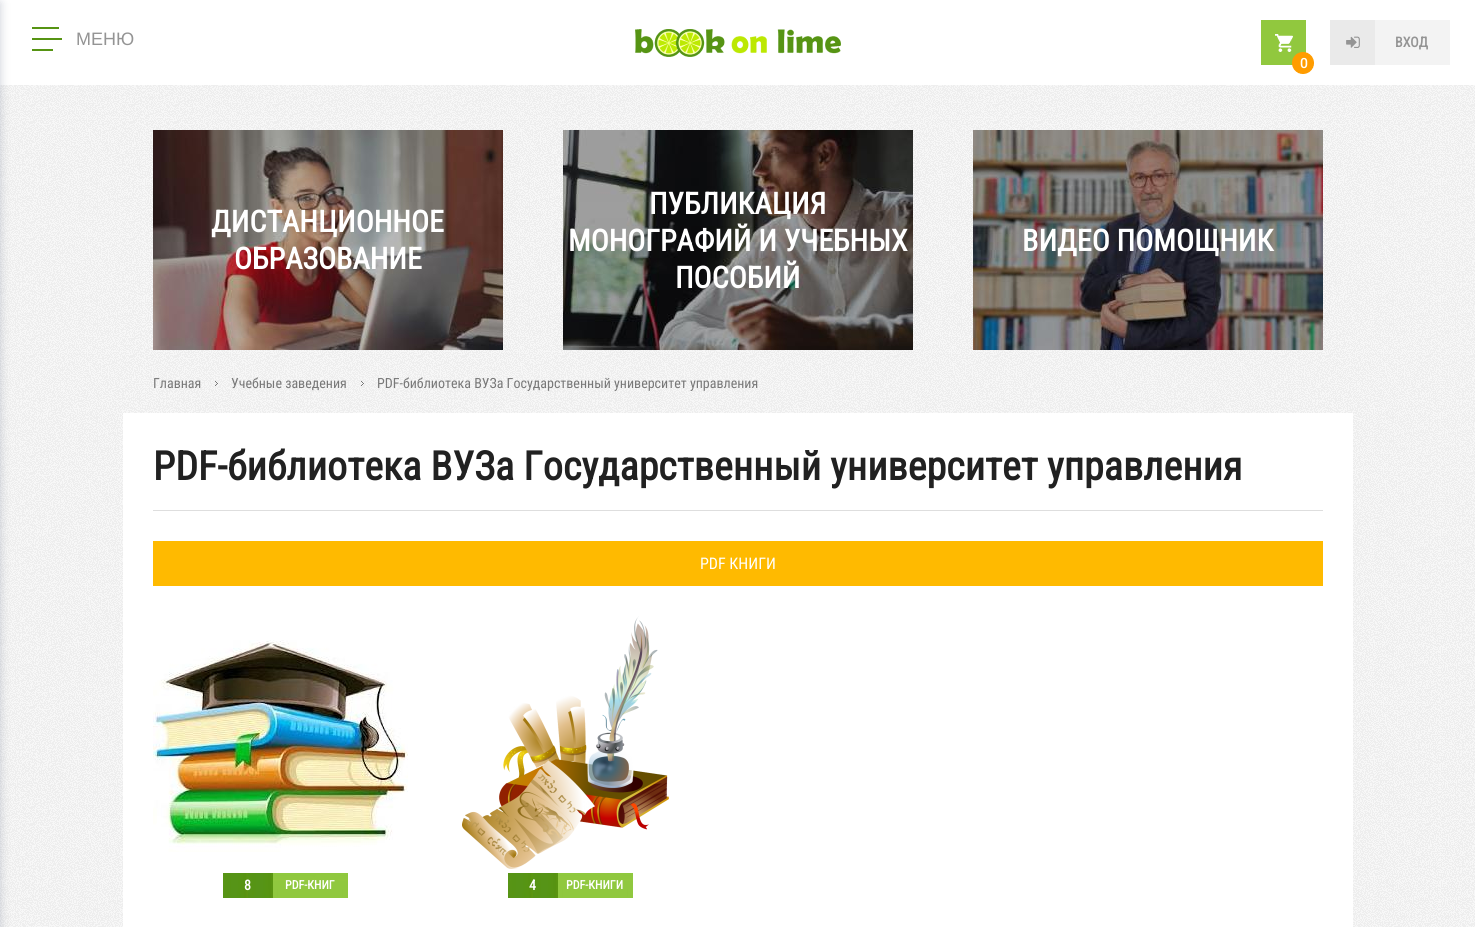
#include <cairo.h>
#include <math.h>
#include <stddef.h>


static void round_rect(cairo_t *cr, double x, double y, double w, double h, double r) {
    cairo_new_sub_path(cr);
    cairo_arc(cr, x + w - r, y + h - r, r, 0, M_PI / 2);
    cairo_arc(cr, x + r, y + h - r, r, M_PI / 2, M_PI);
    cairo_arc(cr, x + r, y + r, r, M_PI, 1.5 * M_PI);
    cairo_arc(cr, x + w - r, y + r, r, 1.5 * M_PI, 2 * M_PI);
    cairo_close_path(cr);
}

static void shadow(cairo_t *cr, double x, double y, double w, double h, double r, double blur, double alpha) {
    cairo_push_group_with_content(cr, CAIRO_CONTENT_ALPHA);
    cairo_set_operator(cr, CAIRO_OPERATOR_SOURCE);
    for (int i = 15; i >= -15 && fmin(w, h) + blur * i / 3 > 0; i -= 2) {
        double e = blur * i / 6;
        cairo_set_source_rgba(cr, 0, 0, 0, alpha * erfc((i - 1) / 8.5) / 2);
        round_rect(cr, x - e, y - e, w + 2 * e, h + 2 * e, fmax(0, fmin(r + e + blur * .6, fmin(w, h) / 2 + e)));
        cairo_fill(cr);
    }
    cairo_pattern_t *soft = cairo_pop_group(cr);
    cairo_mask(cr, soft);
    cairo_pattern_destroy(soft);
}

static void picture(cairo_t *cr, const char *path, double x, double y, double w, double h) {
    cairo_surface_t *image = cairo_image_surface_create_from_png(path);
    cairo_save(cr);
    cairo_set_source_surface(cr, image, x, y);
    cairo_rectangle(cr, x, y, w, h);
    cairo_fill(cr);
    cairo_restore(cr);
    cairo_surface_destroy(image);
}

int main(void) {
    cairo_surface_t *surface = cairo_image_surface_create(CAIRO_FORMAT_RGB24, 1475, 927);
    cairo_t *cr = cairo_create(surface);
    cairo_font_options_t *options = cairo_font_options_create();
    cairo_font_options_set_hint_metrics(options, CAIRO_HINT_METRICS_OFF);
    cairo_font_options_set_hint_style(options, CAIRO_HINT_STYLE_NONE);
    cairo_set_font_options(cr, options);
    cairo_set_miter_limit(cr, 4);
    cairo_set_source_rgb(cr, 1, 1, 1);
    cairo_paint(cr);
    picture(cr, "img1.png", 0, 85, 1475, 842);
    cairo_set_source_rgb(cr, 0.329, 0.373, 0.475);
    shadow(cr, -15, 3, 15, 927, 0, 5, 0.3);
    cairo_set_source_rgb(cr, 0.337, 0.58, 0.078);
    cairo_rectangle(cr, 32, 27, 27, 2);
    cairo_fill(cr);
    cairo_rectangle(cr, 32, 38, 30, 2);
    cairo_fill(cr);
    cairo_rectangle(cr, 32, 49, 21, 2);
    cairo_fill(cr);
    cairo_select_font_face(cr, "Liberation Sans", CAIRO_FONT_SLANT_NORMAL, CAIRO_FONT_WEIGHT_NORMAL);
    cairo_set_font_size(cr, 18);
    cairo_set_source_rgb(cr, 0.58, 0.58, 0.58);
    cairo_move_to(cr, 76, 45);
    cairo_show_text(cr, "МЕНЮ");
    picture(cr, "img2.png", 635, 29, 206, 28);
    picture(cr, "img3.png", 1330, 20, 120, 45);
    cairo_select_font_face(cr, "Roboto Condensed", CAIRO_FONT_SLANT_NORMAL, CAIRO_FONT_WEIGHT_BOLD);
    cairo_set_font_size(cr, 14);
    cairo_move_to(cr, 1395, 47);
    cairo_show_text(cr, "ВХОД");
    picture(cr, "img4.png", 1261, 20, 53, 54);
    cairo_select_font_face(cr, "Roboto Medium", CAIRO_FONT_SLANT_NORMAL, CAIRO_FONT_WEIGHT_NORMAL);
    cairo_set_source_rgb(cr, 1, 1, 1);
    cairo_move_to(cr, 1300, 68);
    cairo_show_text(cr, "0");
    picture(cr, "img5.png", 153, 130, 350, 220);
    cairo_select_font_face(cr, "Roboto Condensed", CAIRO_FONT_SLANT_NORMAL, CAIRO_FONT_WEIGHT_BOLD);
    cairo_set_font_size(cr, 30);
    cairo_move_to(cr, 211, 232);
    cairo_show_text(cr, "ДИСТАНЦИОННОЕ");
    cairo_move_to(cr, 234, 269);
    cairo_show_text(cr, "ОБРАЗОВАНИЕ");
    picture(cr, "img6.png", 563, 130, 350, 220);
    cairo_move_to(cr, 649, 214);
    cairo_show_text(cr, "ПУБЛИКАЦИЯ");
    cairo_move_to(cr, 568, 251);
    cairo_show_text(cr, "МОНОГРАФИЙ И УЧЕБНЫХ");
    cairo_move_to(cr, 675, 288);
    cairo_show_text(cr, "ПОСОБИЙ");
    picture(cr, "img7.png", 973, 130, 350, 220);
    cairo_move_to(cr, 1022, 251);
    cairo_show_text(cr, "ВИДЕО ПОМОЩНИК");
    cairo_select_font_face(cr, "Roboto Condensed", CAIRO_FONT_SLANT_NORMAL, CAIRO_FONT_WEIGHT_NORMAL);
    cairo_set_font_size(cr, 14);
    cairo_set_source_rgb(cr, 0.471, 0.471, 0.471);
    cairo_move_to(cr, 153, 388);
    cairo_show_text(cr, "Главная");
    picture(cr, "img8.png", 215, 381, 3, 5);
    cairo_move_to(cr, 231, 388);
    cairo_show_text(cr, "Учебные заведения");
    picture(cr, "img9.png", 361, 381, 3, 5);
    cairo_move_to(cr, 377, 388);
    cairo_show_text(cr, "PDF-библиотека ВУЗа Государственный университет управления");
    cairo_set_source_rgb(cr, 1, 1, 1);
    cairo_rectangle(cr, 123, 413, 1230, 514);
    cairo_fill(cr);
    cairo_set_source_rgb(cr, 0.871, 0.871, 0.871);
    cairo_rectangle(cr, 153, 510, 1170, 1);
    cairo_fill(cr);
    cairo_select_font_face(cr, "Roboto Condensed", CAIRO_FONT_SLANT_NORMAL, CAIRO_FONT_WEIGHT_BOLD);
    cairo_set_font_size(cr, 40);
    cairo_set_source_rgb(cr, 0.129, 0.129, 0.129);
    cairo_move_to(cr, 153, 480);
    cairo_show_text(cr, "PDF-библиотека ВУЗа Государственный университет управления");
    cairo_set_source_rgb(cr, 1, 0.729, 0);
    cairo_rectangle(cr, 153, 541, 1170, 45);
    cairo_fill(cr);
    cairo_select_font_face(cr, "Roboto Condensed", CAIRO_FONT_SLANT_NORMAL, CAIRO_FONT_WEIGHT_NORMAL);
    cairo_set_font_size(cr, 16);
    cairo_set_source_rgb(cr, 1, 1, 1);
    cairo_move_to(cr, 700, 569);
    cairo_show_text(cr, "PDF КНИГИ");
    picture(cr, "img10.png", 153, 640, 255, 212);
    picture(cr, "img11.png", 223, 873, 50, 25);
    cairo_select_font_face(cr, "Roboto Condensed", CAIRO_FONT_SLANT_NORMAL, CAIRO_FONT_WEIGHT_BOLD);
    cairo_set_font_size(cr, 14);
    cairo_move_to(cr, 244, 890);
    cairo_show_text(cr, "8");
    picture(cr, "img12.png", 273, 873, 75, 25);
    cairo_set_font_size(cr, 12);
    cairo_move_to(cr, 285, 889);
    cairo_show_text(cr, "PDF-КНИГ");
    picture(cr, "img13.png", 462, 616, 207, 253);
    picture(cr, "img11.png", 508, 873, 50, 25);
    cairo_set_font_size(cr, 14);
    cairo_move_to(cr, 529, 890);
    cairo_show_text(cr, "4");
    picture(cr, "img12.png", 558, 873, 75, 25);
    cairo_set_font_size(cr, 12);
    cairo_move_to(cr, 566, 889);
    cairo_show_text(cr, "PDF-КНИГИ");
    cairo_surface_write_to_png(surface, "page.png");
    cairo_font_options_destroy(options);
    cairo_destroy(cr);
    cairo_surface_destroy(surface);
    return 0;
}
